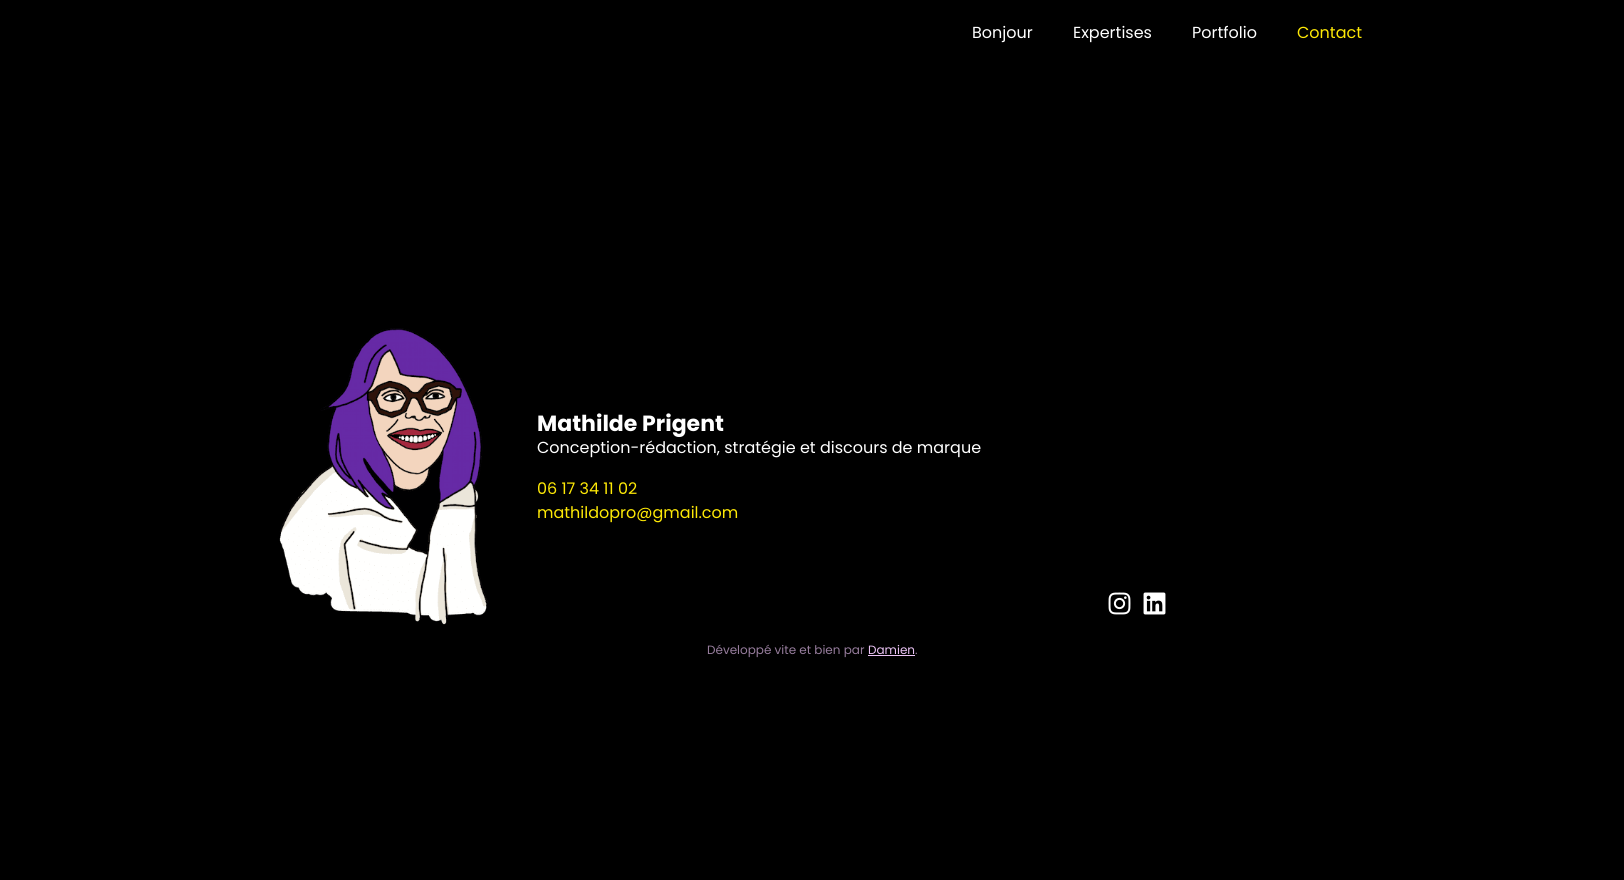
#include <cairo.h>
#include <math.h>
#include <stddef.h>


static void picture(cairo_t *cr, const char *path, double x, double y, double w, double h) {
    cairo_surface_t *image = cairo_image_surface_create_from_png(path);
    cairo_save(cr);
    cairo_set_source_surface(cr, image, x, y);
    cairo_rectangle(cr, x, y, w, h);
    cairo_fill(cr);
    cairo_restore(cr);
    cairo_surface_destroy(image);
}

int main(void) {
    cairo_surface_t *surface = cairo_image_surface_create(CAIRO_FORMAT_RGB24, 1624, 880);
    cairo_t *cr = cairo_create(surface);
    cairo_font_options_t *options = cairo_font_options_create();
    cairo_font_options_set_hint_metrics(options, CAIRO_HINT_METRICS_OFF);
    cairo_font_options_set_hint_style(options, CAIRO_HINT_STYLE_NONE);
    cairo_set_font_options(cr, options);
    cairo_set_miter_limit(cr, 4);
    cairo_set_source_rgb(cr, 0, 0, 0);
    cairo_paint(cr);
    cairo_select_font_face(cr, "Poppins", CAIRO_FONT_SLANT_NORMAL, CAIRO_FONT_WEIGHT_NORMAL);
    cairo_set_font_size(cr, 16);
    cairo_set_source_rgb(cr, 1, 1, 1);
    cairo_move_to(cr, 972, 38);
    cairo_show_text(cr, "Bonjour");
    cairo_move_to(cr, 1073, 38);
    cairo_show_text(cr, "Expertises");
    cairo_move_to(cr, 1192, 38);
    cairo_show_text(cr, "Portfolio");
    cairo_set_source_rgb(cr, 0.996, 0.914, 0.024);
    cairo_move_to(cr, 1297, 38);
    cairo_show_text(cr, "Contact");
    picture(cr, "img1.png", 279, 328, 210, 297);
    cairo_select_font_face(cr, "Poppins", CAIRO_FONT_SLANT_NORMAL, CAIRO_FONT_WEIGHT_BOLD);
    cairo_set_font_size(cr, 22);
    cairo_set_source_rgb(cr, 1, 1, 1);
    cairo_move_to(cr, 537, 431);
    cairo_show_text(cr, "Mathilde Prigent");
    cairo_select_font_face(cr, "Poppins", CAIRO_FONT_SLANT_NORMAL, CAIRO_FONT_WEIGHT_NORMAL);
    cairo_set_font_size(cr, 16);
    cairo_move_to(cr, 537, 453);
    cairo_show_text(cr, "Conception-rédaction, stratégie et discours de marque");
    cairo_set_source_rgb(cr, 0.996, 0.914, 0.024);
    cairo_move_to(cr, 537, 494);
    cairo_show_text(cr, "06 17 34 11 02");
    cairo_move_to(cr, 537, 518);
    cairo_show_text(cr, "mathildopro@gmail.com");
    picture(cr, "img2.png", 1108, 592, 23, 23);
    picture(cr, "img3.png", 1143, 592, 23, 23);
    cairo_set_font_size(cr, 12);
    cairo_set_source_rgb(cr, 0.592, 0.49, 0.616);
    cairo_move_to(cr, 707, 654);
    cairo_show_text(cr, "Développé vite et bien par");
    cairo_set_source_rgb(cr, 0.925, 0.769, 0.961);
    cairo_move_to(cr, 868, 654);
    cairo_show_text(cr, "Damien");
    cairo_rectangle(cr, 868, 655, 47, 1);
    cairo_fill(cr);
    cairo_set_source_rgb(cr, 0.592, 0.49, 0.616);
    cairo_move_to(cr, 915, 654);
    cairo_show_text(cr, ".");
    cairo_surface_write_to_png(surface, "page.png");
    cairo_font_options_destroy(options);
    cairo_destroy(cr);
    cairo_surface_destroy(surface);
    return 0;
}
